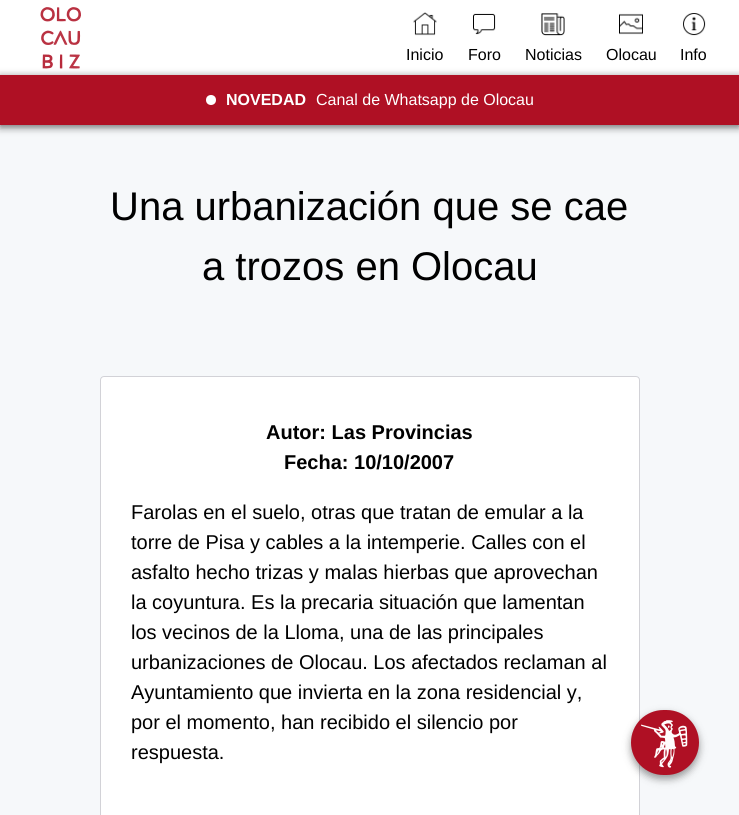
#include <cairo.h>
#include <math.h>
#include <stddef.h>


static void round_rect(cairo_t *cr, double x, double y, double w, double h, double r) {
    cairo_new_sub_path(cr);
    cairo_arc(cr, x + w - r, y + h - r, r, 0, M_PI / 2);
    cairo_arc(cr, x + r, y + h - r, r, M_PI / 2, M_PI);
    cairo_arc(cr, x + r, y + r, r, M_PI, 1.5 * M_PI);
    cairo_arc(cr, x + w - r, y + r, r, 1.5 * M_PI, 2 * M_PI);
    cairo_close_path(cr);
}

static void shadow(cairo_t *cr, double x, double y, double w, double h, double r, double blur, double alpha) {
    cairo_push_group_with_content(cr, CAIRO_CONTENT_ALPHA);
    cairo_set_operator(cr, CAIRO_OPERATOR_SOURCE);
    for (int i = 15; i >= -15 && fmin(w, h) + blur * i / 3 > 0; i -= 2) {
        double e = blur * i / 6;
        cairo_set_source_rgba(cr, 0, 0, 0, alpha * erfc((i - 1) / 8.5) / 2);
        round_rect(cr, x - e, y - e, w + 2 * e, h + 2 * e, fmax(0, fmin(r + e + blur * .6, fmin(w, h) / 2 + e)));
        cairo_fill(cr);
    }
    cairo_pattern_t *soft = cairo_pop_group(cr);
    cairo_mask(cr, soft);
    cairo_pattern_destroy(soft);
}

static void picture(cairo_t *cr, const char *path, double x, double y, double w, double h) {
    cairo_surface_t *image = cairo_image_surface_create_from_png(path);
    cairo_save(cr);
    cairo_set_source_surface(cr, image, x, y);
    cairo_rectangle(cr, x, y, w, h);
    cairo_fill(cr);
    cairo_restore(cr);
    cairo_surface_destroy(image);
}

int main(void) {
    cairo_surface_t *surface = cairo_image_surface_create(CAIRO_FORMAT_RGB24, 739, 815);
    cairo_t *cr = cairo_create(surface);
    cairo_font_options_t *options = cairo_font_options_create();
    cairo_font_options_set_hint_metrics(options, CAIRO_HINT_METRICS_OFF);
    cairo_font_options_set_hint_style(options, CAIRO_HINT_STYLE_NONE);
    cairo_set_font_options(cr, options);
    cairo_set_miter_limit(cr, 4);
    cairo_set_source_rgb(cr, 0.961, 0.969, 0.98);
    cairo_paint(cr);
    cairo_set_source_rgb(cr, 1, 1, 1);
    cairo_rectangle(cr, 0, 0, 739, 75);
    cairo_fill(cr);
    picture(cr, "img1.png", 40, 7, 41, 62);
    picture(cr, "img2.png", 413, 12, 24, 24);
    cairo_select_font_face(cr, "Liberation Sans", CAIRO_FONT_SLANT_NORMAL, CAIRO_FONT_WEIGHT_NORMAL);
    cairo_set_font_size(cr, 16);
    cairo_set_source_rgb(cr, 0, 0, 0);
    cairo_move_to(cr, 406, 60);
    cairo_show_text(cr, "Inicio");
    picture(cr, "img3.png", 473, 13, 23, 22);
    cairo_move_to(cr, 468, 60);
    cairo_show_text(cr, "Foro");
    picture(cr, "img4.png", 541, 13, 24, 23);
    cairo_move_to(cr, 525, 60);
    cairo_show_text(cr, "Noticias");
    picture(cr, "img5.png", 619, 13, 24, 22);
    cairo_move_to(cr, 606, 60);
    cairo_show_text(cr, "Olocau");
    picture(cr, "img6.png", 683, 13, 23, 23);
    cairo_move_to(cr, 680, 60);
    cairo_show_text(cr, "Info");
    cairo_set_source_rgb(cr, 0, 0, 0);
    shadow(cr, 0, 77, 739, 50, 0, 4, 0.6);
    cairo_set_source_rgb(cr, 0.686, 0.063, 0.141);
    cairo_rectangle(cr, 0, 75, 739, 50);
    cairo_fill(cr);
    cairo_set_source_rgb(cr, 1, 1, 1);
    cairo_arc(cr, 211, 100, 5, 0, 2 * M_PI);
    cairo_fill(cr);
    cairo_select_font_face(cr, "Liberation Sans", CAIRO_FONT_SLANT_NORMAL, CAIRO_FONT_WEIGHT_BOLD);
    cairo_move_to(cr, 226, 105);
    cairo_show_text(cr, "NOVEDAD");
    cairo_select_font_face(cr, "Liberation Sans", CAIRO_FONT_SLANT_NORMAL, CAIRO_FONT_WEIGHT_NORMAL);
    cairo_move_to(cr, 316, 105);
    cairo_show_text(cr, "Canal de Whatsapp de Olocau");
    cairo_set_font_size(cr, 40);
    cairo_set_source_rgb(cr, 0, 0, 0);
    cairo_move_to(cr, 110, 220);
    cairo_show_text(cr, "Una urbanización que se cae");
    cairo_move_to(cr, 202, 280);
    cairo_show_text(cr, "a trozos en Olocau");
    cairo_set_source_rgb(cr, 1, 1, 1);
    round_rect(cr, 100.5, 376.5, 539, 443, 3.5);
    cairo_fill_preserve(cr);
    cairo_set_source_rgb(cr, 0.824, 0.824, 0.843);
    cairo_set_line_width(cr, 1);
    cairo_stroke(cr);
    cairo_select_font_face(cr, "Liberation Sans", CAIRO_FONT_SLANT_NORMAL, CAIRO_FONT_WEIGHT_BOLD);
    cairo_set_font_size(cr, 20);
    cairo_set_source_rgb(cr, 0, 0, 0);
    cairo_move_to(cr, 266, 439);
    cairo_show_text(cr, "Autor: Las Provincias");
    cairo_move_to(cr, 284, 469);
    cairo_show_text(cr, "Fecha: 10/10/2007");
    cairo_select_font_face(cr, "Liberation Sans", CAIRO_FONT_SLANT_NORMAL, CAIRO_FONT_WEIGHT_NORMAL);
    cairo_move_to(cr, 131, 519);
    cairo_show_text(cr, "Farolas en el suelo, otras que tratan de emular a la");
    cairo_move_to(cr, 131, 549);
    cairo_show_text(cr, "torre de Pisa y cables a la intemperie. Calles con el");
    cairo_move_to(cr, 131, 579);
    cairo_show_text(cr, "asfalto hecho trizas y malas hierbas que aprovechan");
    cairo_move_to(cr, 131, 609);
    cairo_show_text(cr, "la coyuntura. Es la precaria situación que lamentan");
    cairo_move_to(cr, 131, 639);
    cairo_show_text(cr, "los vecinos de la Lloma, una de las principales");
    cairo_move_to(cr, 131, 669);
    cairo_show_text(cr, "urbanizaciones de Olocau. Los afectados reclaman al");
    cairo_move_to(cr, 131, 699);
    cairo_show_text(cr, "Ayuntamiento que invierta en la zona residencial y,");
    cairo_move_to(cr, 131, 729);
    cairo_show_text(cr, "por el momento, han recibido el silencio por");
    cairo_move_to(cr, 131, 759);
    cairo_show_text(cr, "respuesta.");
    cairo_set_source_rgb(cr, 0, 0, 0);
    shadow(cr, 631, 714, 68, 65, 32.5, 4, 0.4);
    cairo_set_source_rgb(cr, 0.686, 0.063, 0.141);
    round_rect(cr, 631, 710, 68, 65, 32.5);
    cairo_fill(cr);
    picture(cr, "img7.png", 641, 720, 47, 48);
    cairo_surface_write_to_png(surface, "page.png");
    cairo_font_options_destroy(options);
    cairo_destroy(cr);
    cairo_surface_destroy(surface);
    return 0;
}
